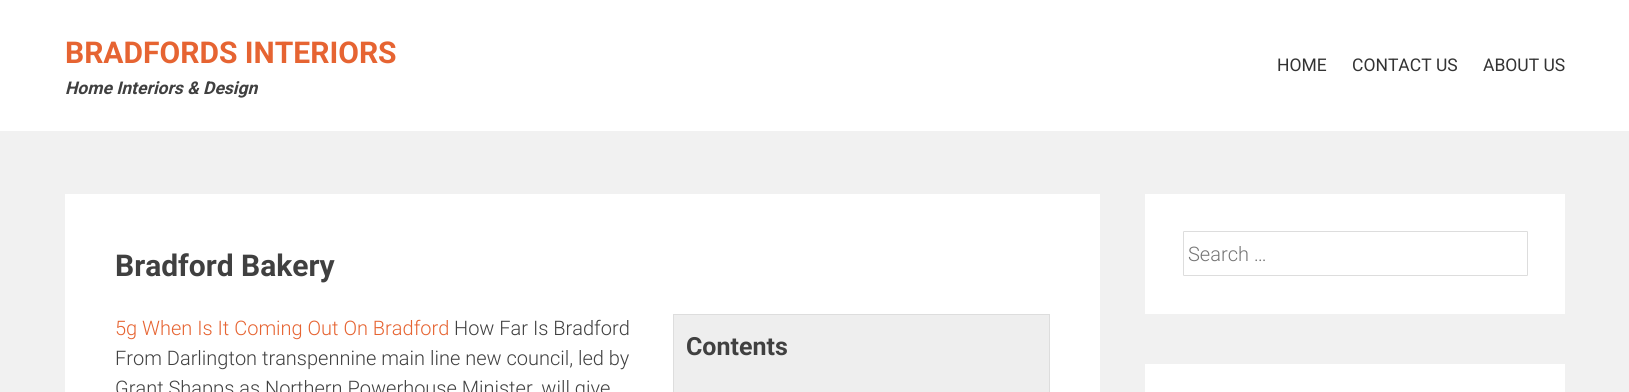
#include <cairo.h>
#include <math.h>
#include <stddef.h>


static void round_rect(cairo_t *cr, double x, double y, double w, double h, double r) {
    cairo_new_sub_path(cr);
    cairo_arc(cr, x + w - r, y + h - r, r, 0, M_PI / 2);
    cairo_arc(cr, x + r, y + h - r, r, M_PI / 2, M_PI);
    cairo_arc(cr, x + r, y + r, r, M_PI, 1.5 * M_PI);
    cairo_arc(cr, x + w - r, y + r, r, 1.5 * M_PI, 2 * M_PI);
    cairo_close_path(cr);
}

int main(void) {
    cairo_surface_t *surface = cairo_image_surface_create(CAIRO_FORMAT_RGB24, 1629, 392);
    cairo_t *cr = cairo_create(surface);
    cairo_font_options_t *options = cairo_font_options_create();
    cairo_font_options_set_hint_metrics(options, CAIRO_HINT_METRICS_OFF);
    cairo_font_options_set_hint_style(options, CAIRO_HINT_STYLE_NONE);
    cairo_set_font_options(cr, options);
    cairo_set_miter_limit(cr, 4);
    cairo_set_source_rgb(cr, 0.945, 0.945, 0.945);
    cairo_paint(cr);
    cairo_set_source_rgb(cr, 1, 1, 1);
    cairo_rectangle(cr, 0, 0, 1629, 131);
    cairo_fill(cr);
    cairo_select_font_face(cr, "Roboto", CAIRO_FONT_SLANT_NORMAL, CAIRO_FONT_WEIGHT_BOLD);
    cairo_set_font_size(cr, 30);
    cairo_set_source_rgb(cr, 0.902, 0.392, 0.196);
    cairo_move_to(cr, 65, 63);
    cairo_show_text(cr, "BRADFORDS INTERIORS");
    cairo_select_font_face(cr, "Roboto", CAIRO_FONT_SLANT_ITALIC, CAIRO_FONT_WEIGHT_BOLD);
    cairo_set_font_size(cr, 17.5);
    cairo_set_source_rgb(cr, 0.251, 0.251, 0.251);
    cairo_move_to(cr, 65, 94);
    cairo_show_text(cr, "Home Interiors & Design");
    cairo_select_font_face(cr, "Roboto", CAIRO_FONT_SLANT_NORMAL, CAIRO_FONT_WEIGHT_NORMAL);
    cairo_set_source_rgb(cr, 0.2, 0.2, 0.2);
    cairo_move_to(cr, 1277, 71);
    cairo_show_text(cr, "HOME");
    cairo_move_to(cr, 1352, 71);
    cairo_show_text(cr, "CONTACT US");
    cairo_move_to(cr, 1483, 71);
    cairo_show_text(cr, "ABOUT US");
    cairo_set_source_rgb(cr, 1, 1, 1);
    cairo_rectangle(cr, 65, 194, 1035, 198);
    cairo_fill(cr);
    cairo_select_font_face(cr, "Roboto", CAIRO_FONT_SLANT_NORMAL, CAIRO_FONT_WEIGHT_BOLD);
    cairo_set_font_size(cr, 30);
    cairo_set_source_rgb(cr, 0.251, 0.251, 0.251);
    cairo_move_to(cr, 115, 276);
    cairo_show_text(cr, "Bradford Bakery");
    cairo_select_font_face(cr, "Roboto Light", CAIRO_FONT_SLANT_NORMAL, CAIRO_FONT_WEIGHT_NORMAL);
    cairo_set_font_size(cr, 20);
    cairo_set_source_rgb(cr, 0.902, 0.392, 0.196);
    cairo_move_to(cr, 115, 335);
    cairo_show_text(cr, "5g When Is It Coming Out On Bradford");
    cairo_set_source_rgb(cr, 0.251, 0.251, 0.251);
    cairo_move_to(cr, 454, 335);
    cairo_show_text(cr, "How Far Is Bradford");
    cairo_move_to(cr, 115, 365);
    cairo_show_text(cr, "From Darlington transpennine main line new council, led by");
    cairo_move_to(cr, 115, 395);
    cairo_show_text(cr, "Grant Shapps as Northern Powerhouse Minister, will give");
    cairo_set_source_rgb(cr, 0.933, 0.933, 0.933);
    cairo_rectangle(cr, 673.5, 314.5, 376, 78);
    cairo_fill_preserve(cr);
    cairo_set_source_rgb(cr, 0.867, 0.867, 0.867);
    cairo_set_line_width(cr, 1);
    cairo_stroke(cr);
    cairo_select_font_face(cr, "Roboto", CAIRO_FONT_SLANT_NORMAL, CAIRO_FONT_WEIGHT_BOLD);
    cairo_set_font_size(cr, 25);
    cairo_set_source_rgb(cr, 0.251, 0.251, 0.251);
    cairo_move_to(cr, 686, 355);
    cairo_show_text(cr, "Contents");
    cairo_set_source_rgb(cr, 1, 1, 1);
    cairo_rectangle(cr, 1145, 194, 420, 120);
    cairo_fill(cr);
    round_rect(cr, 1183.5, 231.5, 344, 44, 0.5);
    cairo_set_source_rgb(cr, 0.867, 0.867, 0.867);
    cairo_stroke(cr);
    cairo_select_font_face(cr, "Roboto Light", CAIRO_FONT_SLANT_NORMAL, CAIRO_FONT_WEIGHT_NORMAL);
    cairo_set_font_size(cr, 20);
    cairo_set_source_rgb(cr, 0.459, 0.459, 0.459);
    cairo_move_to(cr, 1188, 261);
    cairo_show_text(cr, "Search …");
    cairo_set_source_rgb(cr, 1, 1, 1);
    cairo_rectangle(cr, 1145, 364, 420, 28);
    cairo_fill(cr);
    cairo_surface_write_to_png(surface, "page.png");
    cairo_font_options_destroy(options);
    cairo_destroy(cr);
    cairo_surface_destroy(surface);
    return 0;
}
